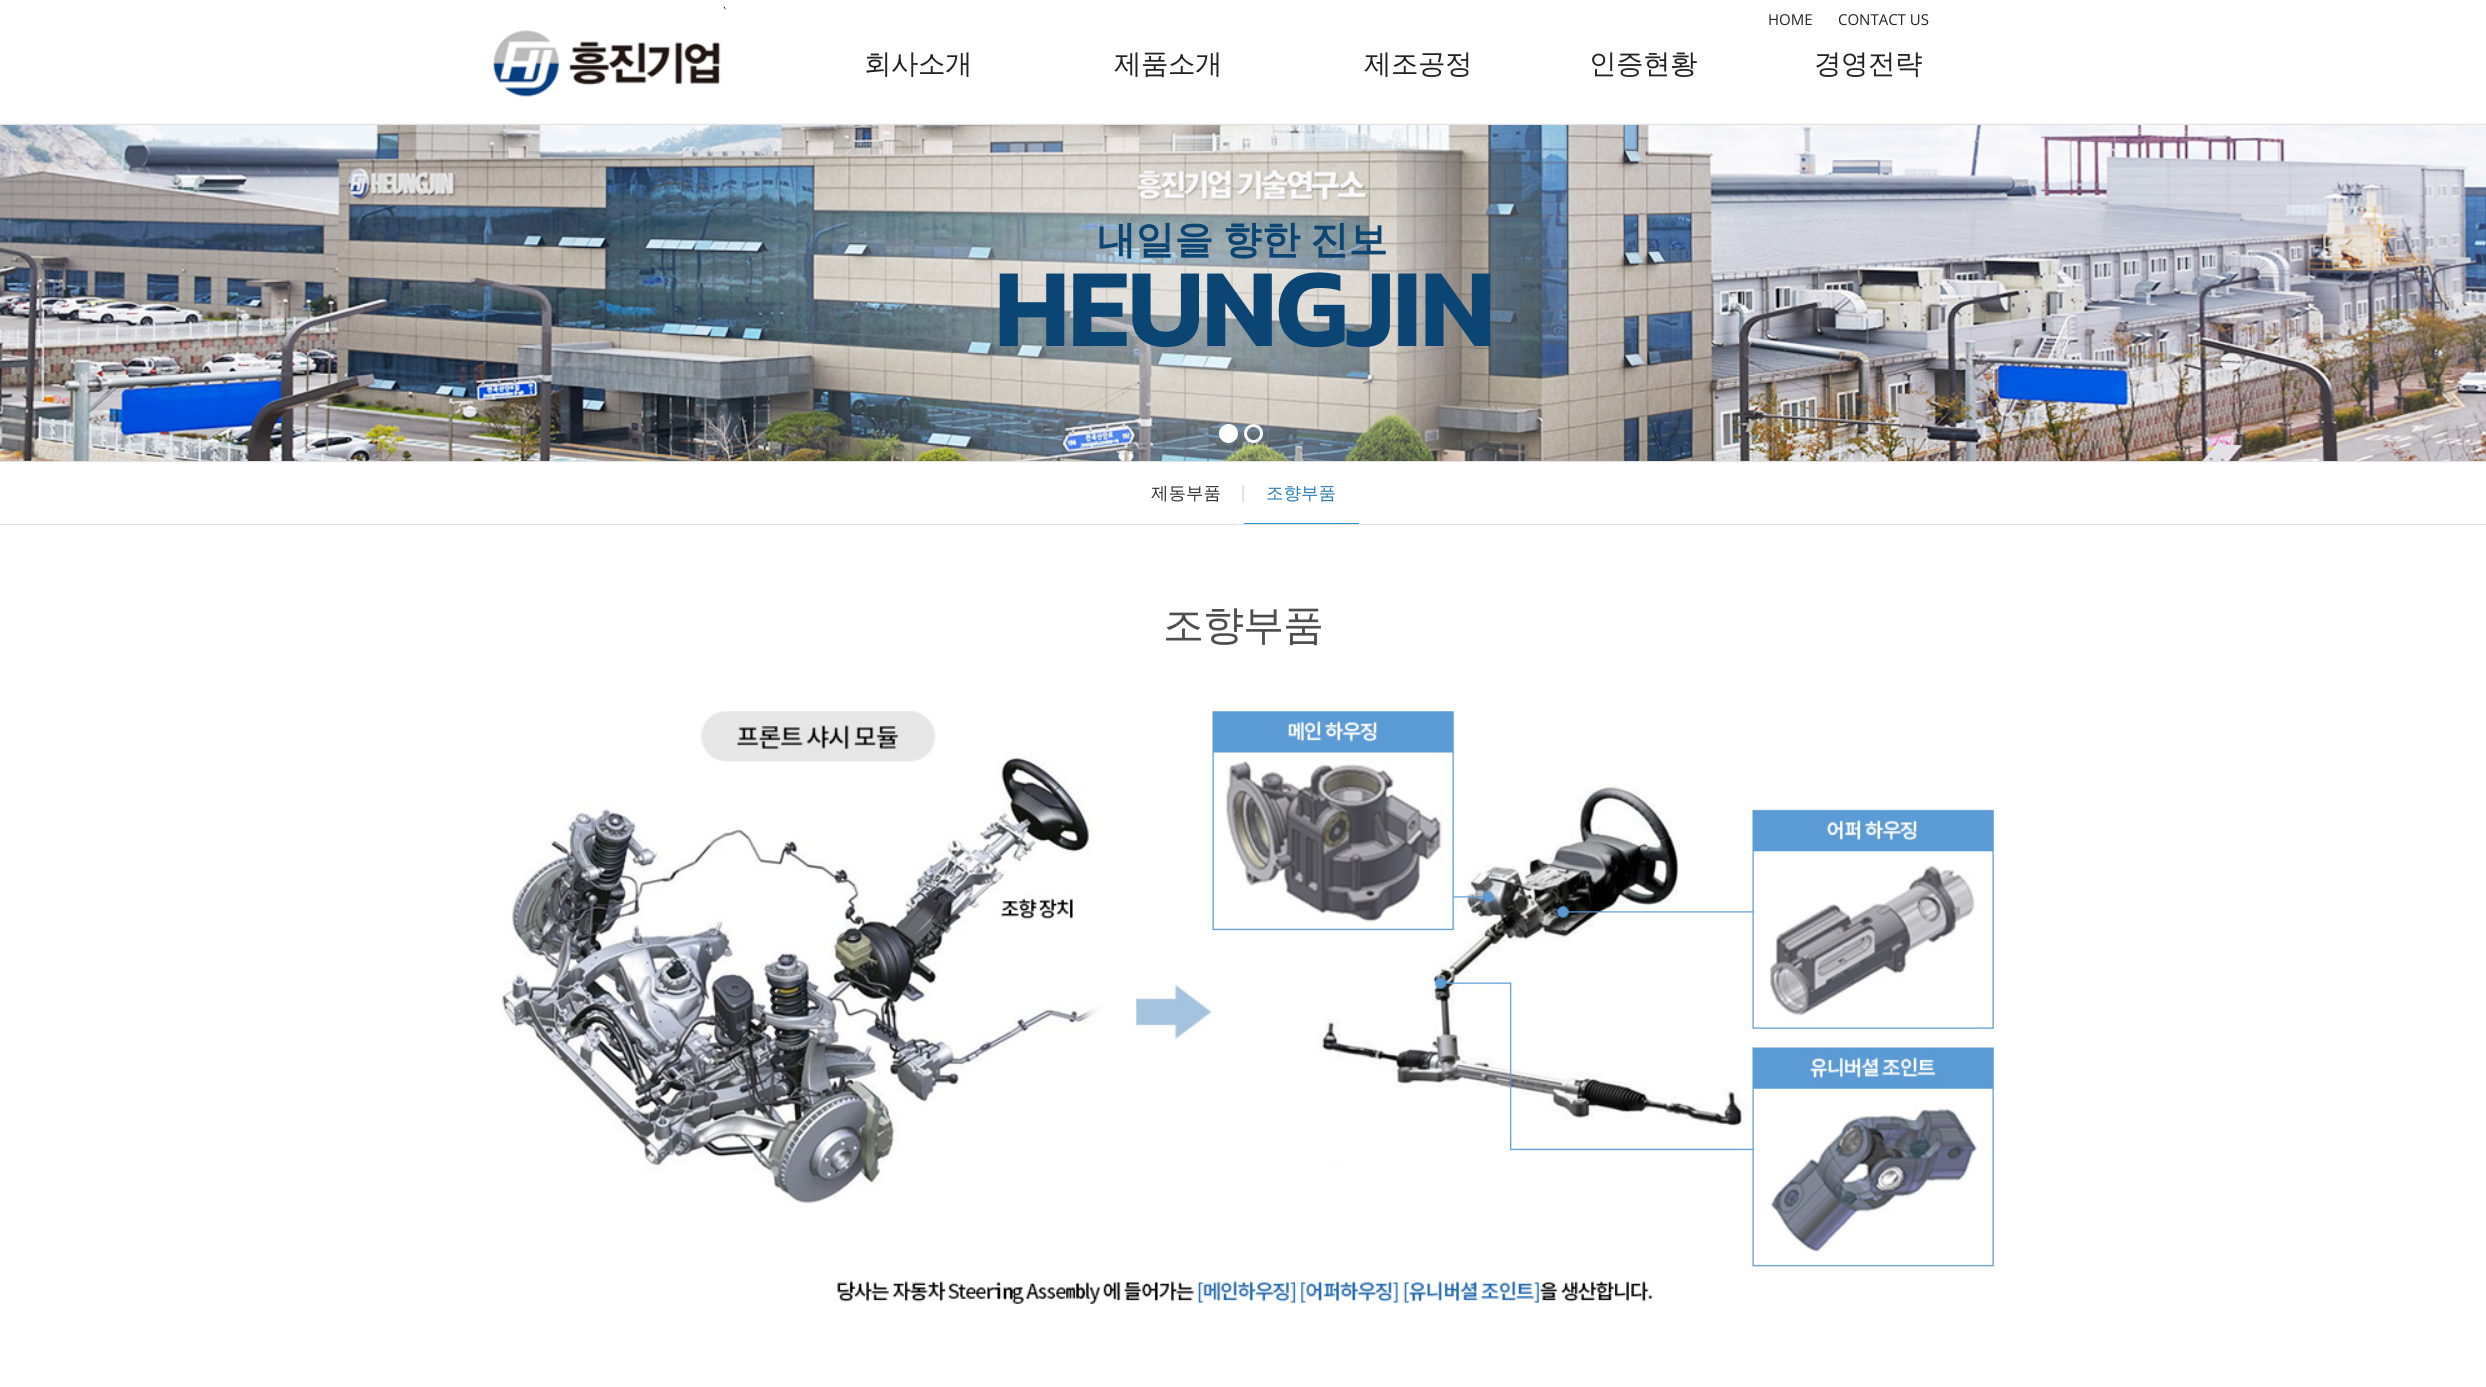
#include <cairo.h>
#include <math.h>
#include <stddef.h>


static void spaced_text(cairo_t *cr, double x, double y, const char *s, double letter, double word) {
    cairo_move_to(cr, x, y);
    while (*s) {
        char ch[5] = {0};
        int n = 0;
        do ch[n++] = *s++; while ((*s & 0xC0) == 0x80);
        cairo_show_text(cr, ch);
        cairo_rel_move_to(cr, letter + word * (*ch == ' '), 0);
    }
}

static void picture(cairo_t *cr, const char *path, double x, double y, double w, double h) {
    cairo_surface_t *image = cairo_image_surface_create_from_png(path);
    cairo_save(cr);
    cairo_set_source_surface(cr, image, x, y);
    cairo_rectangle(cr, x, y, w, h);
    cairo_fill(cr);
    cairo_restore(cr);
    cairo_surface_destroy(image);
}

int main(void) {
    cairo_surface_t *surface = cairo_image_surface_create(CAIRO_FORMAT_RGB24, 2486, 1387);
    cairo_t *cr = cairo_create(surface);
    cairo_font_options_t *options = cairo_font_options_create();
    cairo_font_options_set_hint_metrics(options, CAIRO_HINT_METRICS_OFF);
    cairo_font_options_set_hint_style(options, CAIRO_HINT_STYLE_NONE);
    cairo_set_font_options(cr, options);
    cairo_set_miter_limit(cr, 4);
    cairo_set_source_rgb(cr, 1, 1, 1);
    cairo_paint(cr);
    picture(cr, "img1.png", 0, 0, 2486, 124);
    cairo_set_source_rgb(cr, 0.89, 0.89, 0.89);
    cairo_rectangle(cr, 0, 124, 2486, 1);
    cairo_fill(cr);
    cairo_select_font_face(cr, "Dotum", CAIRO_FONT_SLANT_NORMAL, CAIRO_FONT_WEIGHT_NORMAL);
    cairo_set_font_size(cr, 15);
    cairo_set_source_rgb(cr, 0, 0, 0);
    cairo_move_to(cr, 722, 18);
    cairo_show_text(cr, "`");
    cairo_select_font_face(cr, "Open Sans", CAIRO_FONT_SLANT_NORMAL, CAIRO_FONT_WEIGHT_NORMAL);
    cairo_set_source_rgb(cr, 0.137, 0.137, 0.137);
    cairo_move_to(cr, 1768, 25);
    cairo_show_text(cr, "HOME");
    cairo_move_to(cr, 1838, 25);
    cairo_show_text(cr, "CONTACT US");
    picture(cr, "img2.png", 493, 30, 228, 67);
    cairo_select_font_face(cr, "WenQuanYi Zen Hei Medium", CAIRO_FONT_SLANT_NORMAL, CAIRO_FONT_WEIGHT_NORMAL);
    cairo_set_font_size(cr, 27.5);
    spaced_text(cr, 864, 73, "회사소개", -0.5, 0);
    spaced_text(cr, 1114, 73, "제품소개", -0.5, 0);
    spaced_text(cr, 1364, 73, "제조공정", -0.5, 0);
    spaced_text(cr, 1589, 73, "인증현황", -0.5, 0);
    spaced_text(cr, 1814, 73, "경영전략", -0.5, 0);
    picture(cr, "img3.png", 0, 125, 2486, 336);
    cairo_select_font_face(cr, "WenQuanYi Zen Hei", CAIRO_FONT_SLANT_NORMAL, CAIRO_FONT_WEIGHT_BOLD);
    cairo_set_font_size(cr, 38.75);
    cairo_set_source_rgb(cr, 0.043, 0.271, 0.451);
    spaced_text(cr, 1097, 253, "내일을 향한 진보", 0, -2);
    cairo_select_font_face(cr, "Kanit SemiBold", CAIRO_FONT_SLANT_NORMAL, CAIRO_FONT_WEIGHT_NORMAL);
    cairo_set_font_size(cr, 112.5);
    spaced_text(cr, 994, 346, "HEUNGJIN", -2.5, 0);
    cairo_set_source_rgb(cr, 1, 1, 1);
    cairo_new_path(cr);
    cairo_arc(cr, 1228.5, 433.5, 8, 0, 2 * M_PI);
    cairo_fill_preserve(cr);
    cairo_set_line_width(cr, 3);
    cairo_stroke(cr);
    cairo_arc(cr, 1253.5, 433.5, 8, 0, 2 * M_PI);
    cairo_stroke(cr);
    cairo_set_source_rgb(cr, 0.89, 0.89, 0.89);
    cairo_rectangle(cr, 0, 461, 2486, 1);
    cairo_fill(cr);
    cairo_rectangle(cr, 0, 524, 2486, 1);
    cairo_fill(cr);
    picture(cr, "img4.png", 1242, 485, 2, 18);
    cairo_select_font_face(cr, "WenQuanYi Zen Hei Medium", CAIRO_FONT_SLANT_NORMAL, CAIRO_FONT_WEIGHT_NORMAL);
    cairo_set_font_size(cr, 17.5);
    cairo_set_source_rgb(cr, 0.188, 0.188, 0.188);
    cairo_move_to(cr, 1151, 499);
    cairo_show_text(cr, "제동부품");
    cairo_set_source_rgb(cr, 0.153, 0.569, 0.804);
    cairo_rectangle(cr, 1244, 523, 115, 1);
    cairo_fill(cr);
    cairo_set_source_rgb(cr, 0.161, 0.486, 0.718);
    cairo_move_to(cr, 1266, 499);
    cairo_show_text(cr, "조향부품");
    cairo_set_font_size(cr, 41);
    cairo_set_source_rgb(cr, 0.306, 0.306, 0.306);
    spaced_text(cr, 1163, 639, "조향부품", -1, 0);
    picture(cr, "img5.png", 499, 711, 1495, 593);
    cairo_surface_write_to_png(surface, "page.png");
    cairo_font_options_destroy(options);
    cairo_destroy(cr);
    cairo_surface_destroy(surface);
    return 0;
}
